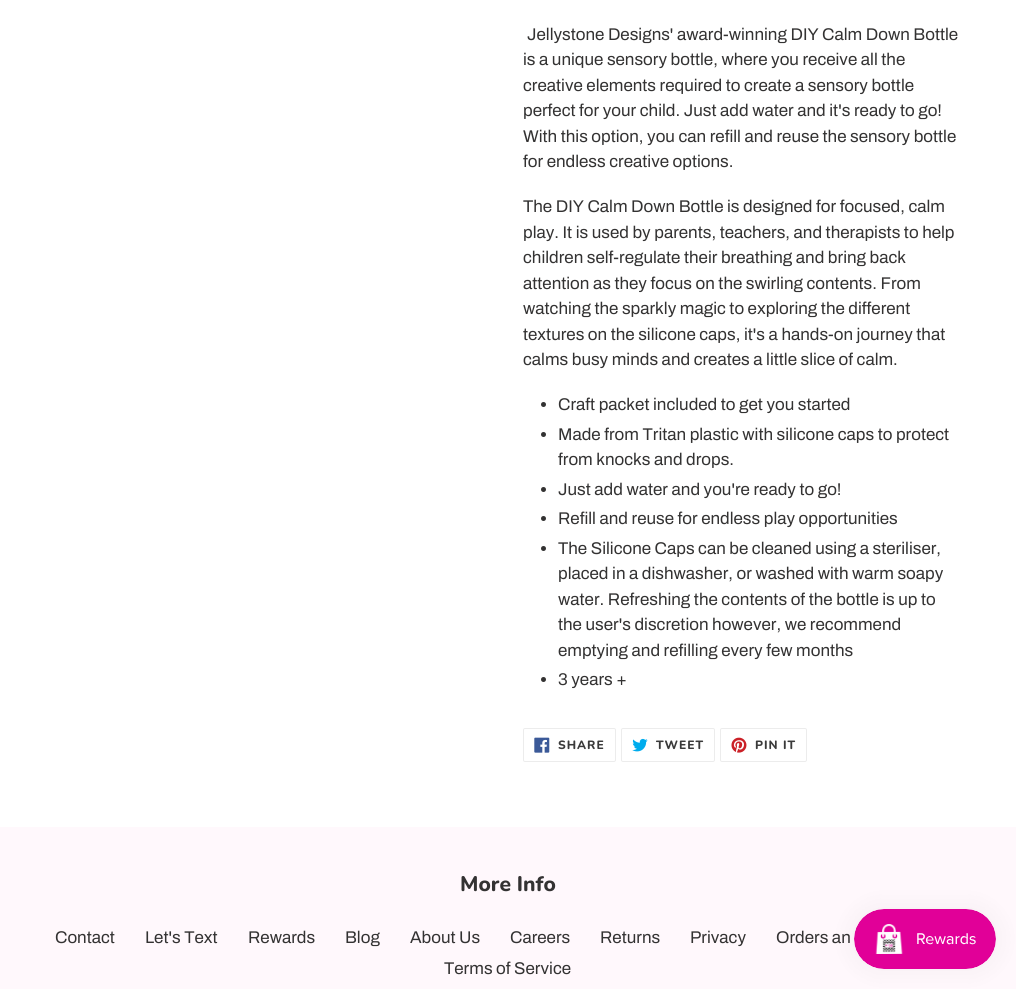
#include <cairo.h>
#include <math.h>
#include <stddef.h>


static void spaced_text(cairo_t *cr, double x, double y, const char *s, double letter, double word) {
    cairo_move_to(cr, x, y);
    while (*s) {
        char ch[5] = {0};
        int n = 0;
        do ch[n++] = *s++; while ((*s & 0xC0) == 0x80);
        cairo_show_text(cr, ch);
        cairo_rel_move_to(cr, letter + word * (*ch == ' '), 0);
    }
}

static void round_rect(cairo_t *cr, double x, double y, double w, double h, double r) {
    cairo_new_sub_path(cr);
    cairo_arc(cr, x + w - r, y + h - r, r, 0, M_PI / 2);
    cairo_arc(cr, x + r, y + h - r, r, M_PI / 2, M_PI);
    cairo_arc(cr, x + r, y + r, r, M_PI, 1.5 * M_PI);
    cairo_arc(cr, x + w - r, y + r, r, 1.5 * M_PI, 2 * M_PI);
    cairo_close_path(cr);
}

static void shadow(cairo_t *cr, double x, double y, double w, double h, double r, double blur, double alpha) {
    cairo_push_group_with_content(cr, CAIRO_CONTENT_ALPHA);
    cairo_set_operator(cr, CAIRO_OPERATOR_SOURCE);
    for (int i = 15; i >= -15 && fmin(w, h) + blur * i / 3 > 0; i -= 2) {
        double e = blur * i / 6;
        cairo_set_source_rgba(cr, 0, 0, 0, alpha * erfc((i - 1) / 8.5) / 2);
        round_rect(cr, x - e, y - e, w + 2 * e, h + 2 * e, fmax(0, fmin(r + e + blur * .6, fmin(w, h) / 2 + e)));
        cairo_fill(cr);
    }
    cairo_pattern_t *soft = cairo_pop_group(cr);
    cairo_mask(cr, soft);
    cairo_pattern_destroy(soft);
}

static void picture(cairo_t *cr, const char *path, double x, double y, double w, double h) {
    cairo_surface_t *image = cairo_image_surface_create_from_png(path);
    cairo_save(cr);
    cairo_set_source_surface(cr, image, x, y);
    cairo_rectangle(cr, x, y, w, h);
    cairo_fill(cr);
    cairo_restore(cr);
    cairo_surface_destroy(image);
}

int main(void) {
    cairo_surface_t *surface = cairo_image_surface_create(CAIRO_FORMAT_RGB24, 1016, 989);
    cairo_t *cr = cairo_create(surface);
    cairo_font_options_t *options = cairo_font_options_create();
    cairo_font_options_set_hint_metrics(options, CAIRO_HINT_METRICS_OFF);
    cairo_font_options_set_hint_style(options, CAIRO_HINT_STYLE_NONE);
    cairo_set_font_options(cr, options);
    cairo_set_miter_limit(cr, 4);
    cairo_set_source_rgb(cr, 1, 1, 1);
    cairo_paint(cr);
    cairo_select_font_face(cr, "Archivo", CAIRO_FONT_SLANT_NORMAL, CAIRO_FONT_WEIGHT_NORMAL);
    cairo_set_font_size(cr, 17);
    cairo_set_source_rgb(cr, 0.2, 0.196, 0.196);
    cairo_move_to(cr, 527, 40);
    cairo_show_text(cr, "Jellystone Designs' award-winning DIY Calm Down Bottle");
    cairo_move_to(cr, 523, 65);
    cairo_show_text(cr, "is a unique sensory bottle, where you receive all the");
    cairo_move_to(cr, 523, 91);
    cairo_show_text(cr, "creative elements required to create a sensory bottle");
    cairo_move_to(cr, 523, 116);
    cairo_show_text(cr, "perfect for your child. Just add water and it's ready to go!");
    cairo_move_to(cr, 523, 142);
    cairo_show_text(cr, "With this option, you can refill and reuse the sensory bottle");
    cairo_move_to(cr, 523, 167);
    cairo_show_text(cr, "for endless creative options.");
    cairo_move_to(cr, 523, 212);
    cairo_show_text(cr, "The DIY Calm Down Bottle is designed for focused, calm");
    cairo_move_to(cr, 523, 238);
    cairo_show_text(cr, "play. It is used by parents, teachers, and therapists to help");
    cairo_move_to(cr, 523, 263);
    cairo_show_text(cr, "children self-regulate their breathing and bring back");
    cairo_move_to(cr, 523, 289);
    cairo_show_text(cr, "attention as they focus on the swirling contents. From");
    cairo_move_to(cr, 523, 314);
    cairo_show_text(cr, "watching the sparkly magic to exploring the different");
    cairo_move_to(cr, 523, 340);
    cairo_show_text(cr, "textures on the silicone caps, it's a hands-on journey that");
    cairo_move_to(cr, 523, 365);
    cairo_show_text(cr, "calms busy minds and creates a little slice of calm.");
    cairo_new_path(cr);
    cairo_arc(cr, 543.5, 404.5, 2.5, 0, 2 * M_PI);
    cairo_fill(cr);
    cairo_move_to(cr, 558, 410);
    cairo_show_text(cr, "Craft packet included to get you started");
    cairo_new_path(cr);
    cairo_arc(cr, 543.5, 434.5, 2.5, 0, 2 * M_PI);
    cairo_fill(cr);
    cairo_move_to(cr, 558, 440);
    cairo_show_text(cr, "Made from Tritan plastic with silicone caps to protect");
    cairo_move_to(cr, 558, 465);
    cairo_show_text(cr, "from knocks and drops.");
    cairo_new_path(cr);
    cairo_arc(cr, 543.5, 489.5, 2.5, 0, 2 * M_PI);
    cairo_fill(cr);
    cairo_move_to(cr, 558, 495);
    cairo_show_text(cr, "Just add water and you're ready to go!");
    cairo_new_path(cr);
    cairo_arc(cr, 543.5, 518.5, 2.5, 0, 2 * M_PI);
    cairo_fill(cr);
    cairo_move_to(cr, 558, 524);
    cairo_show_text(cr, "Refill and reuse for endless play opportunities");
    cairo_new_path(cr);
    cairo_arc(cr, 543.5, 548.5, 2.5, 0, 2 * M_PI);
    cairo_fill(cr);
    cairo_move_to(cr, 558, 554);
    cairo_show_text(cr, "The Silicone Caps can be cleaned using a steriliser,");
    cairo_move_to(cr, 558, 579);
    cairo_show_text(cr, "placed in a dishwasher, or washed with warm soapy");
    cairo_move_to(cr, 558, 605);
    cairo_show_text(cr, "water. Refreshing the contents of the bottle is up to");
    cairo_move_to(cr, 558, 630);
    cairo_show_text(cr, "the user's discretion however, we recommend");
    cairo_move_to(cr, 558, 656);
    cairo_show_text(cr, "emptying and refilling every few months");
    cairo_new_path(cr);
    cairo_arc(cr, 543.5, 679.5, 2.5, 0, 2 * M_PI);
    cairo_fill(cr);
    cairo_move_to(cr, 558, 685);
    cairo_show_text(cr, "3 years +");
    round_rect(cr, 523.5, 728.5, 92, 33, 1.5);
    cairo_set_source_rgb(cr, 0.922, 0.922, 0.922);
    cairo_set_line_width(cr, 1);
    cairo_stroke(cr);
    picture(cr, "img1.png", 534, 737, 16, 16);
    cairo_select_font_face(cr, "Nunito ExtraBold", CAIRO_FONT_SLANT_NORMAL, CAIRO_FONT_WEIGHT_NORMAL);
    cairo_set_font_size(cr, 12);
    cairo_set_source_rgb(cr, 0.227, 0.227, 0.227);
    spaced_text(cr, 558, 749, "SHARE", 1, 0);
    round_rect(cr, 621.5, 728.5, 93, 33, 1.5);
    cairo_set_source_rgb(cr, 0.922, 0.922, 0.922);
    cairo_stroke(cr);
    picture(cr, "img2.png", 632, 738, 16, 14);
    cairo_set_source_rgb(cr, 0.227, 0.227, 0.227);
    spaced_text(cr, 656, 749, "TWEET", 1, 0);
    round_rect(cr, 720.5, 728.5, 86, 33, 1.5);
    cairo_set_source_rgb(cr, 0.922, 0.922, 0.922);
    cairo_stroke(cr);
    picture(cr, "img3.png", 731, 737, 16, 16);
    cairo_set_source_rgb(cr, 0.227, 0.227, 0.227);
    spaced_text(cr, 755, 749, "PIN IT", 1, 0);
    cairo_set_source_rgb(cr, 1, 0.969, 0.988);
    cairo_rectangle(cr, 0, 827, 1016, 162);
    cairo_fill(cr);
    cairo_set_font_size(cr, 21);
    cairo_set_source_rgb(cr, 0.2, 0.196, 0.196);
    cairo_move_to(cr, 460, 891);
    cairo_show_text(cr, "More Info");
    cairo_select_font_face(cr, "Archivo", CAIRO_FONT_SLANT_NORMAL, CAIRO_FONT_WEIGHT_NORMAL);
    cairo_set_font_size(cr, 17);
    cairo_move_to(cr, 55, 943);
    cairo_show_text(cr, "Contact");
    cairo_move_to(cr, 145, 943);
    cairo_show_text(cr, "Let's Text");
    cairo_move_to(cr, 248, 943);
    cairo_show_text(cr, "Rewards");
    cairo_move_to(cr, 345, 943);
    cairo_show_text(cr, "Blog");
    cairo_move_to(cr, 410, 943);
    cairo_show_text(cr, "About Us");
    cairo_move_to(cr, 510, 943);
    cairo_show_text(cr, "Careers");
    cairo_move_to(cr, 600, 943);
    cairo_show_text(cr, "Returns");
    cairo_move_to(cr, 690, 943);
    cairo_show_text(cr, "Privacy");
    cairo_move_to(cr, 776, 943);
    cairo_show_text(cr, "Orders an");
    cairo_move_to(cr, 444, 974);
    cairo_show_text(cr, "Terms of Service");
    cairo_set_source_rgb(cr, 0, 0, 0);
    shadow(cr, 854, 909, 142, 60, 30, 12.5, 0.05);
    picture(cr, "img4.png", 854, 909, 142, 60);
    cairo_surface_write_to_png(surface, "page.png");
    cairo_font_options_destroy(options);
    cairo_destroy(cr);
    cairo_surface_destroy(surface);
    return 0;
}
